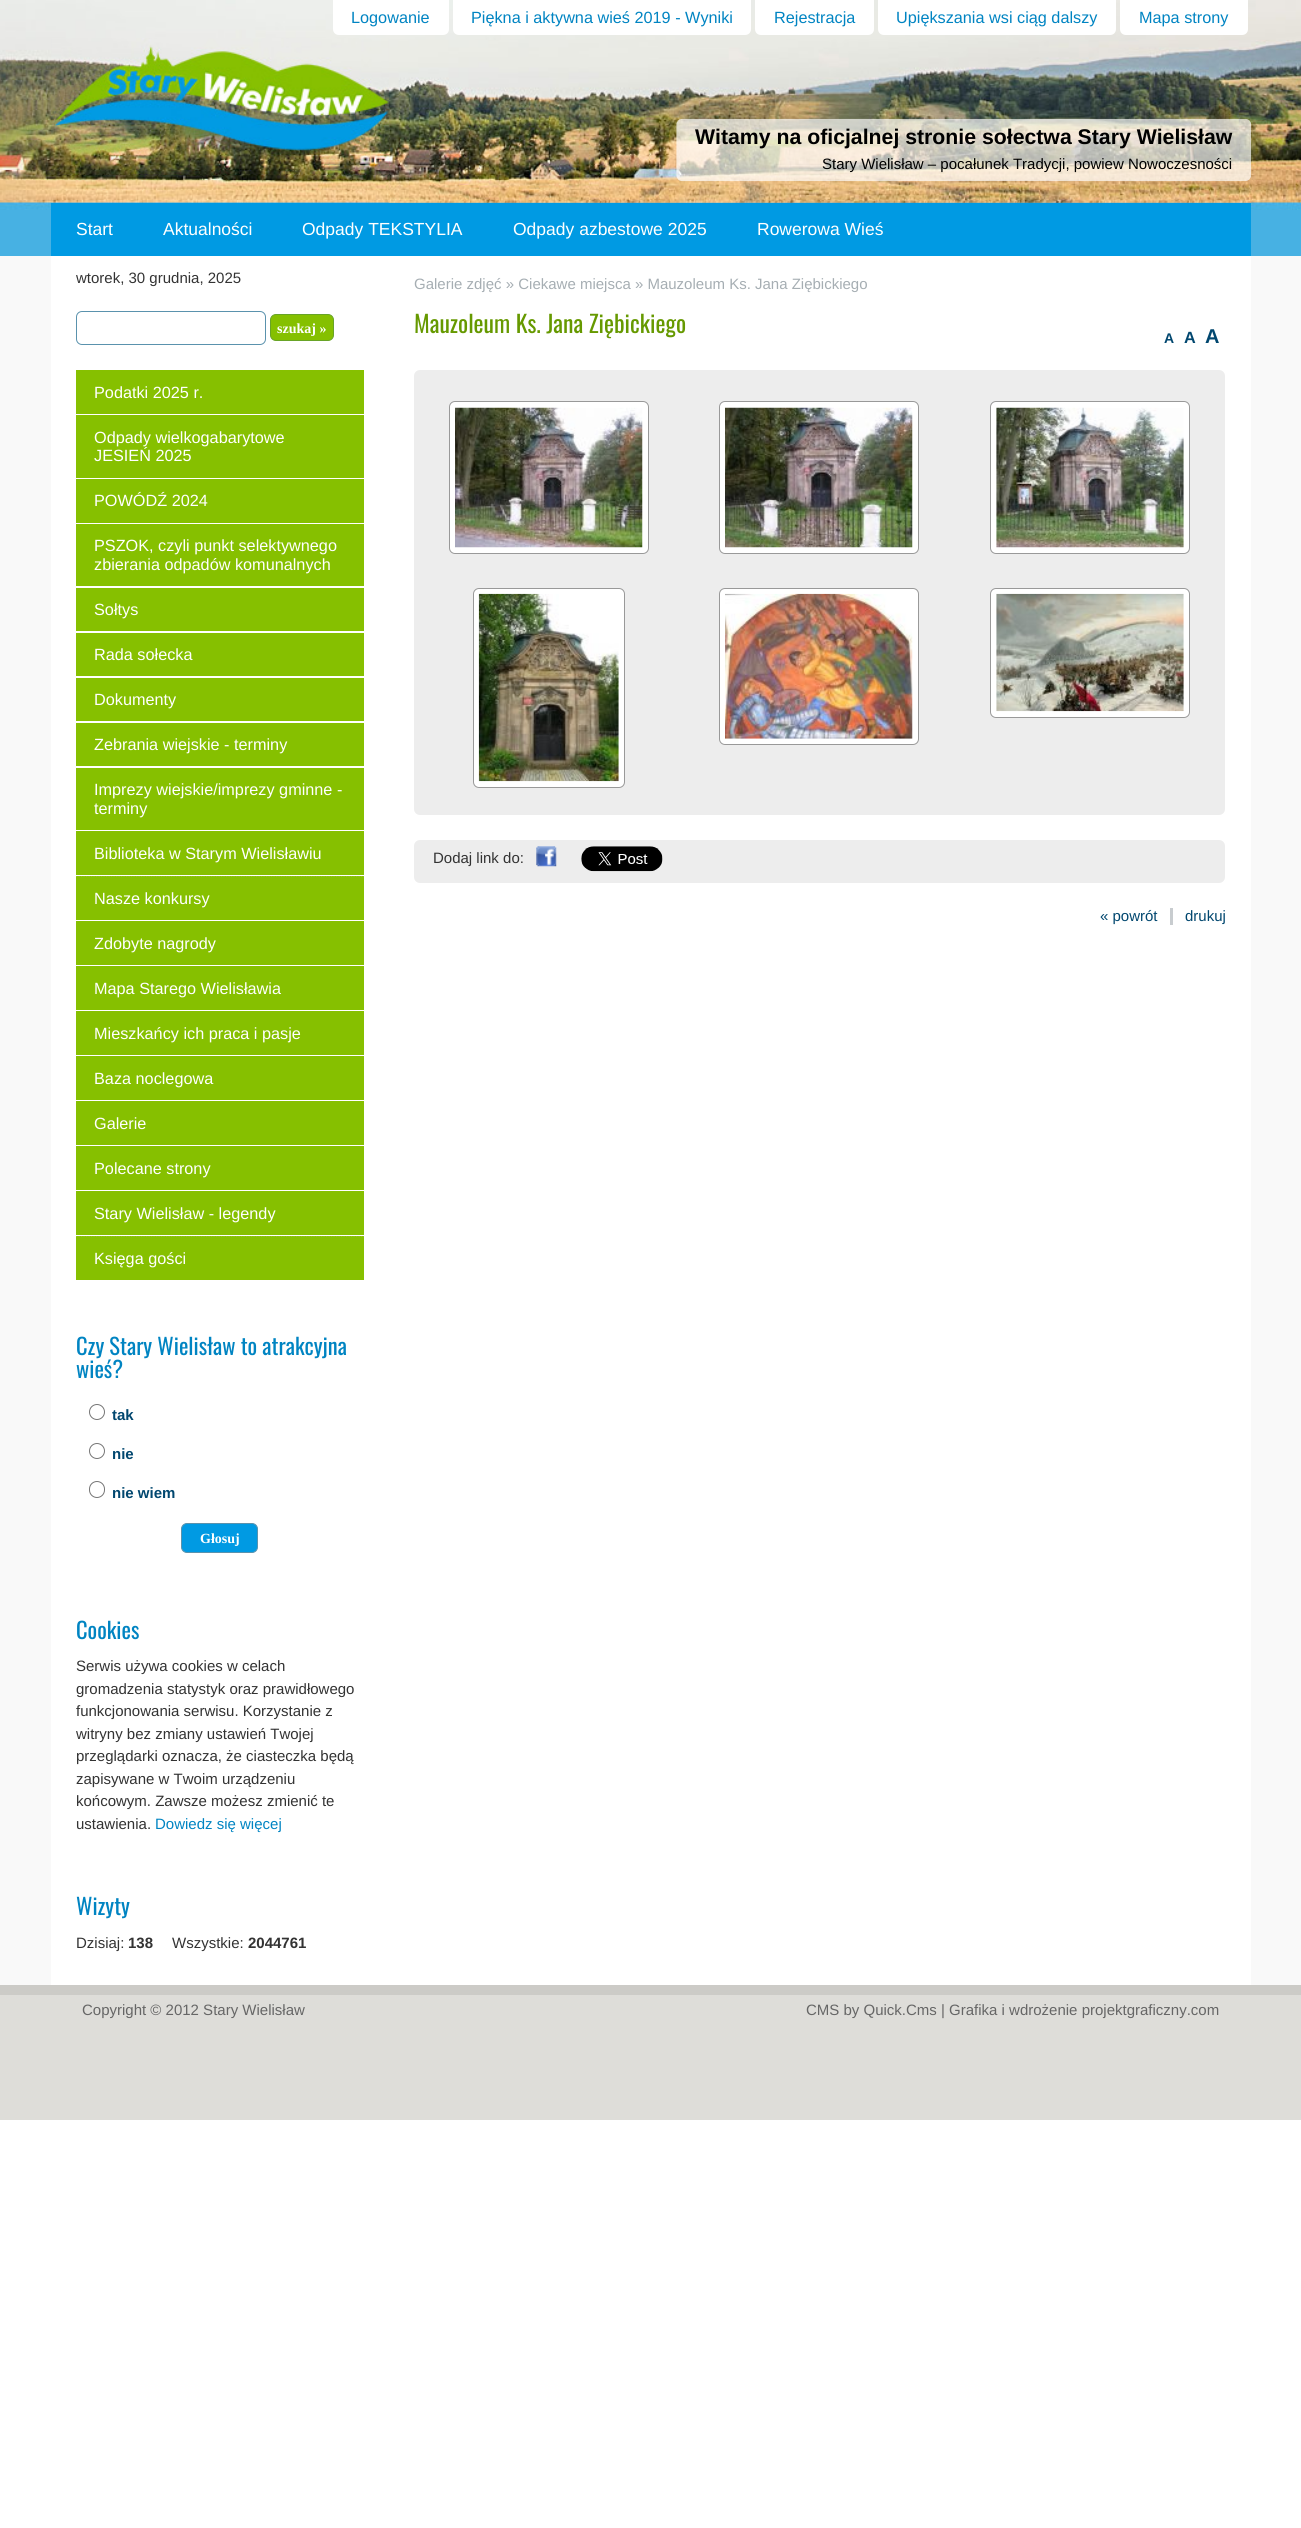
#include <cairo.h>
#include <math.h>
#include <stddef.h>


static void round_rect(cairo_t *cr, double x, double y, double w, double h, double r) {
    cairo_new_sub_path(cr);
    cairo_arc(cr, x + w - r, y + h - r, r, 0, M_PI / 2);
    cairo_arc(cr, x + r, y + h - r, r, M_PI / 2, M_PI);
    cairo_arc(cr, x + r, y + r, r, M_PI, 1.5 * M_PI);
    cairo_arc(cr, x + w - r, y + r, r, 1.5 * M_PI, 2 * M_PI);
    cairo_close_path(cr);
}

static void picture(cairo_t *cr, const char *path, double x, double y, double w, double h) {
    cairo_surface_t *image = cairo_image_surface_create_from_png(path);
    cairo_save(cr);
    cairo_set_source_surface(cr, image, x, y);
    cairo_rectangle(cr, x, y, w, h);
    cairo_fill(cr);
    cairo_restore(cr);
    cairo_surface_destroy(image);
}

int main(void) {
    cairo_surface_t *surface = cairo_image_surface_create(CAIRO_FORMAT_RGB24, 1301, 2528);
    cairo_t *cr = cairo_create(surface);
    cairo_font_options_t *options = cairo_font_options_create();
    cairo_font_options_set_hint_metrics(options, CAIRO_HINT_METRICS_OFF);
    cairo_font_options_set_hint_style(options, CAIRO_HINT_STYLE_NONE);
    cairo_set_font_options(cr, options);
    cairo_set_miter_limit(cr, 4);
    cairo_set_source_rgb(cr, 1, 1, 1);
    cairo_paint(cr);
    picture(cr, "img1.png", 0, 210, 1301, 46);
    picture(cr, "img2.png", 0, 0, 1301, 210);
    cairo_set_source_rgb(cr, 1, 1, 1);
    cairo_new_path(cr);
    cairo_move_to(cr, 333, 0);
    cairo_line_to(cr, 449, 0);
    cairo_line_to(cr, 449, 29);
    cairo_curve_to(cr, 449, 32.5, 446.5, 35, 443, 35);
    cairo_line_to(cr, 339, 35);
    cairo_curve_to(cr, 335.5, 35, 333, 32.5, 333, 29);
    cairo_close_path(cr);
    cairo_fill(cr);
    cairo_select_font_face(cr, "Liberation Sans", CAIRO_FONT_SLANT_NORMAL, CAIRO_FONT_WEIGHT_NORMAL);
    cairo_set_font_size(cr, 16.25);
    cairo_set_source_rgb(cr, 0, 0.518, 0.761);
    cairo_move_to(cr, 351, 23);
    cairo_show_text(cr, "Logowanie");
    cairo_set_source_rgb(cr, 1, 1, 1);
    cairo_new_path(cr);
    cairo_move_to(cr, 453, 0);
    cairo_line_to(cr, 751, 0);
    cairo_line_to(cr, 751, 29);
    cairo_curve_to(cr, 751, 32.5, 748.5, 35, 745, 35);
    cairo_line_to(cr, 459, 35);
    cairo_curve_to(cr, 455.5, 35, 453, 32.5, 453, 29);
    cairo_close_path(cr);
    cairo_fill(cr);
    cairo_set_source_rgb(cr, 0, 0.518, 0.761);
    cairo_move_to(cr, 471, 23);
    cairo_show_text(cr, "Piękna i aktywna wieś 2019 - Wyniki");
    cairo_set_source_rgb(cr, 1, 1, 1);
    cairo_new_path(cr);
    cairo_move_to(cr, 755, 0);
    cairo_line_to(cr, 874, 0);
    cairo_line_to(cr, 874, 29);
    cairo_curve_to(cr, 874, 32.5, 871.5, 35, 868, 35);
    cairo_line_to(cr, 761, 35);
    cairo_curve_to(cr, 757.5, 35, 755, 32.5, 755, 29);
    cairo_close_path(cr);
    cairo_fill(cr);
    cairo_set_source_rgb(cr, 0, 0.518, 0.761);
    cairo_move_to(cr, 774, 23);
    cairo_show_text(cr, "Rejestracja");
    cairo_set_source_rgb(cr, 1, 1, 1);
    cairo_new_path(cr);
    cairo_move_to(cr, 878, 0);
    cairo_line_to(cr, 1116, 0);
    cairo_line_to(cr, 1116, 29);
    cairo_curve_to(cr, 1116, 32.5, 1113.5, 35, 1110, 35);
    cairo_line_to(cr, 884, 35);
    cairo_curve_to(cr, 880.5, 35, 878, 32.5, 878, 29);
    cairo_close_path(cr);
    cairo_fill(cr);
    cairo_set_source_rgb(cr, 0, 0.518, 0.761);
    cairo_move_to(cr, 896, 23);
    cairo_show_text(cr, "Upiększania wsi ciąg dalszy");
    cairo_set_source_rgb(cr, 1, 1, 1);
    cairo_new_path(cr);
    cairo_move_to(cr, 1120, 0);
    cairo_line_to(cr, 1248, 0);
    cairo_line_to(cr, 1248, 29);
    cairo_curve_to(cr, 1248, 32.5, 1245.5, 35, 1242, 35);
    cairo_line_to(cr, 1126, 35);
    cairo_curve_to(cr, 1122.5, 35, 1120, 32.5, 1120, 29);
    cairo_close_path(cr);
    cairo_fill(cr);
    cairo_set_source_rgb(cr, 0, 0.518, 0.761);
    cairo_move_to(cr, 1139, 23);
    cairo_show_text(cr, "Mapa strony");
    picture(cr, "img3.png", 388, 40, 864, 163);
    picture(cr, "img4.png", 51, 38, 338, 137);
    picture(cr, "img5.png", 676, 118, 576, 64);
    cairo_select_font_face(cr, "Liberation Sans", CAIRO_FONT_SLANT_NORMAL, CAIRO_FONT_WEIGHT_BOLD);
    cairo_set_font_size(cr, 21.25);
    cairo_set_source_rgb(cr, 0, 0, 0);
    cairo_move_to(cr, 695, 144);
    cairo_show_text(cr, "Witamy na oficjalnej stronie sołectwa Stary Wielisław");
    cairo_select_font_face(cr, "Liberation Sans", CAIRO_FONT_SLANT_NORMAL, CAIRO_FONT_WEIGHT_NORMAL);
    cairo_set_font_size(cr, 15);
    cairo_move_to(cr, 822, 169);
    cairo_show_text(cr, "Stary Wielisław – pocałunek Tradycji, powiew Nowoczesności");
    cairo_set_source_rgb(cr, 0, 0.604, 0.89);
    cairo_rectangle(cr, 51, 203, 1200, 53);
    cairo_fill(cr);
    cairo_set_font_size(cr, 17.5);
    cairo_set_source_rgb(cr, 1, 1, 1);
    cairo_move_to(cr, 76, 235);
    cairo_show_text(cr, "Start");
    cairo_move_to(cr, 163, 235);
    cairo_show_text(cr, "Aktualności");
    cairo_move_to(cr, 302, 235);
    cairo_show_text(cr, "Odpady TEKSTYLIA");
    cairo_move_to(cr, 513, 235);
    cairo_show_text(cr, "Odpady azbestowe 2025");
    cairo_move_to(cr, 757, 235);
    cairo_show_text(cr, "Rowerowa Wieś");
    cairo_set_source_rgb(cr, 0.976, 0.976, 0.976);
    cairo_rectangle(cr, 0, 256, 1301, 1729);
    cairo_fill(cr);
    cairo_set_source_rgb(cr, 1, 1, 1);
    cairo_rectangle(cr, 51, 256, 1200, 1729);
    cairo_fill(cr);
    cairo_set_font_size(cr, 15);
    cairo_set_source_rgb(cr, 0.2, 0.2, 0.2);
    cairo_move_to(cr, 76, 283);
    cairo_show_text(cr, "wtorek, 30 grudnia, 2025");
    round_rect(cr, 76.5, 311.5, 189, 33, 5.5);
    cairo_set_source_rgb(cr, 0.353, 0.573, 0.678);
    cairo_set_line_width(cr, 1);
    cairo_stroke(cr);
    cairo_set_source_rgb(cr, 0.522, 0.753, 0);
    round_rect(cr, 270.5, 314.5, 63, 26, 5.5);
    cairo_fill_preserve(cr);
    cairo_set_source_rgb(cr, 0.408, 0.643, 0.153);
    cairo_stroke(cr);
    cairo_select_font_face(cr, "Liberation Serif", CAIRO_FONT_SLANT_NORMAL, CAIRO_FONT_WEIGHT_BOLD);
    cairo_set_font_size(cr, 14);
    cairo_set_source_rgb(cr, 1, 1, 1);
    cairo_move_to(cr, 277, 333);
    cairo_show_text(cr, "szukaj »");
    cairo_set_source_rgb(cr, 0.525, 0.753, 0);
    cairo_rectangle(cr, 76, 370, 288, 44);
    cairo_fill(cr);
    cairo_select_font_face(cr, "Liberation Sans", CAIRO_FONT_SLANT_NORMAL, CAIRO_FONT_WEIGHT_NORMAL);
    cairo_set_font_size(cr, 16.25);
    cairo_set_source_rgb(cr, 1, 1, 1);
    cairo_move_to(cr, 94, 398);
    cairo_show_text(cr, "Podatki 2025 r.");
    cairo_set_source_rgb(cr, 0.525, 0.753, 0);
    cairo_rectangle(cr, 76, 415, 288, 63);
    cairo_fill(cr);
    cairo_set_source_rgb(cr, 1, 1, 1);
    cairo_move_to(cr, 94, 443);
    cairo_show_text(cr, "Odpady wielkogabarytowe");
    cairo_move_to(cr, 94, 461);
    cairo_show_text(cr, "JESIEŃ 2025");
    cairo_set_source_rgb(cr, 0.525, 0.753, 0);
    cairo_rectangle(cr, 76, 479, 288, 44);
    cairo_fill(cr);
    cairo_set_source_rgb(cr, 1, 1, 1);
    cairo_move_to(cr, 94, 506);
    cairo_show_text(cr, "POWÓDŹ 2024");
    cairo_set_source_rgb(cr, 0.525, 0.753, 0);
    cairo_rectangle(cr, 76, 524, 288, 62);
    cairo_fill(cr);
    cairo_set_source_rgb(cr, 1, 1, 1);
    cairo_move_to(cr, 94, 551);
    cairo_show_text(cr, "PSZOK, czyli punkt selektywnego");
    cairo_move_to(cr, 94, 570);
    cairo_show_text(cr, "zbierania odpadów komunalnych");
    cairo_set_source_rgb(cr, 0.525, 0.753, 0);
    cairo_rectangle(cr, 76, 588, 288, 43);
    cairo_fill(cr);
    cairo_set_source_rgb(cr, 1, 1, 1);
    cairo_move_to(cr, 94, 615);
    cairo_show_text(cr, "Sołtys");
    cairo_set_source_rgb(cr, 0.525, 0.753, 0);
    cairo_rectangle(cr, 76, 633, 288, 43);
    cairo_fill(cr);
    cairo_set_source_rgb(cr, 1, 1, 1);
    cairo_move_to(cr, 94, 660);
    cairo_show_text(cr, "Rada sołecka");
    cairo_set_source_rgb(cr, 0.525, 0.753, 0);
    cairo_rectangle(cr, 76, 678, 288, 43);
    cairo_fill(cr);
    cairo_set_source_rgb(cr, 1, 1, 1);
    cairo_move_to(cr, 94, 705);
    cairo_show_text(cr, "Dokumenty");
    cairo_set_source_rgb(cr, 0.525, 0.753, 0);
    cairo_rectangle(cr, 76, 723, 288, 43);
    cairo_fill(cr);
    cairo_set_source_rgb(cr, 1, 1, 1);
    cairo_move_to(cr, 94, 750);
    cairo_show_text(cr, "Zebrania wiejskie - terminy");
    cairo_set_source_rgb(cr, 0.525, 0.753, 0);
    cairo_rectangle(cr, 76, 768, 288, 62);
    cairo_fill(cr);
    cairo_set_source_rgb(cr, 1, 1, 1);
    cairo_move_to(cr, 94, 795);
    cairo_show_text(cr, "Imprezy wiejskie/imprezy gminne -");
    cairo_move_to(cr, 94, 814);
    cairo_show_text(cr, "terminy");
    cairo_set_source_rgb(cr, 0.525, 0.753, 0);
    cairo_rectangle(cr, 76, 876, 288, 44);
    cairo_fill(cr);
    cairo_new_path(cr);
    cairo_move_to(cr, 76, 875.5);
    cairo_line_to(cr, 364, 875.5);
    cairo_set_source_rgb(cr, 1, 1, 1);
    cairo_set_line_width(cr, 1.2);
    cairo_set_dash(cr, (double[]){1.25, 1.25}, 2, 0);
    cairo_stroke(cr);
    cairo_set_source_rgb(cr, 0.525, 0.753, 0);
    cairo_rectangle(cr, 76, 831, 288, 44);
    cairo_fill(cr);
    cairo_set_source_rgb(cr, 1, 1, 1);
    cairo_move_to(cr, 94, 859);
    cairo_show_text(cr, "Biblioteka w Starym Wielisławiu");
    cairo_move_to(cr, 94, 904);
    cairo_show_text(cr, "Nasze konkursy");
    cairo_set_source_rgb(cr, 0.525, 0.753, 0);
    cairo_rectangle(cr, 76, 921, 288, 44);
    cairo_fill(cr);
    cairo_set_source_rgb(cr, 1, 1, 1);
    cairo_move_to(cr, 94, 949);
    cairo_show_text(cr, "Zdobyte nagrody");
    cairo_set_source_rgb(cr, 0.525, 0.753, 0);
    cairo_rectangle(cr, 76, 966, 288, 44);
    cairo_fill(cr);
    cairo_set_source_rgb(cr, 1, 1, 1);
    cairo_move_to(cr, 94, 994);
    cairo_show_text(cr, "Mapa Starego Wielisławia");
    cairo_set_source_rgb(cr, 0.525, 0.753, 0);
    cairo_rectangle(cr, 76, 1011, 288, 44);
    cairo_fill(cr);
    cairo_set_source_rgb(cr, 1, 1, 1);
    cairo_move_to(cr, 94, 1039);
    cairo_show_text(cr, "Mieszkańcy ich praca i pasje");
    cairo_set_source_rgb(cr, 0.525, 0.753, 0);
    cairo_rectangle(cr, 76, 1056, 288, 44);
    cairo_fill(cr);
    cairo_set_source_rgb(cr, 1, 1, 1);
    cairo_move_to(cr, 94, 1084);
    cairo_show_text(cr, "Baza noclegowa");
    cairo_set_source_rgb(cr, 0.525, 0.753, 0);
    cairo_rectangle(cr, 76, 1101, 288, 44);
    cairo_fill(cr);
    cairo_set_source_rgb(cr, 1, 1, 1);
    cairo_move_to(cr, 94, 1129);
    cairo_show_text(cr, "Galerie");
    cairo_set_source_rgb(cr, 0.525, 0.753, 0);
    cairo_rectangle(cr, 76, 1146, 288, 44);
    cairo_fill(cr);
    cairo_set_source_rgb(cr, 1, 1, 1);
    cairo_move_to(cr, 94, 1174);
    cairo_show_text(cr, "Polecane strony");
    cairo_set_source_rgb(cr, 0.525, 0.753, 0);
    cairo_rectangle(cr, 76, 1236, 288, 44);
    cairo_fill(cr);
    cairo_new_path(cr);
    cairo_move_to(cr, 76, 1235.5);
    cairo_line_to(cr, 364, 1235.5);
    cairo_set_source_rgb(cr, 1, 1, 1);
    cairo_stroke(cr);
    cairo_set_source_rgb(cr, 0.525, 0.753, 0);
    cairo_rectangle(cr, 76, 1191, 288, 44);
    cairo_fill(cr);
    cairo_set_source_rgb(cr, 1, 1, 1);
    cairo_move_to(cr, 94, 1219);
    cairo_show_text(cr, "Stary Wielisław - legendy");
    cairo_move_to(cr, 94, 1264);
    cairo_show_text(cr, "Księga gości");
    cairo_select_font_face(cr, "Oswald", CAIRO_FONT_SLANT_NORMAL, CAIRO_FONT_WEIGHT_NORMAL);
    cairo_set_font_size(cr, 22.5);
    cairo_set_source_rgb(cr, 0, 0.518, 0.761);
    cairo_move_to(cr, 76, 1355);
    cairo_show_text(cr, "Czy Stary Wielisław to atrakcyjna");
    cairo_move_to(cr, 76, 1378);
    cairo_show_text(cr, "wieś?");
    cairo_new_path(cr);
    cairo_arc(cr, 97, 1412, 7.5, 0, 2 * M_PI);
    cairo_set_source_rgb(cr, 0.463, 0.463, 0.463);
    cairo_set_line_width(cr, 1);
    cairo_set_dash(cr, NULL, 0, 0);
    cairo_stroke(cr);
    cairo_select_font_face(cr, "Liberation Sans", CAIRO_FONT_SLANT_NORMAL, CAIRO_FONT_WEIGHT_BOLD);
    cairo_set_font_size(cr, 15);
    cairo_set_source_rgb(cr, 0.004, 0.278, 0.435);
    cairo_move_to(cr, 112, 1420);
    cairo_show_text(cr, "tak");
    cairo_new_path(cr);
    cairo_arc(cr, 97, 1451, 7.5, 0, 2 * M_PI);
    cairo_set_source_rgb(cr, 0.463, 0.463, 0.463);
    cairo_stroke(cr);
    cairo_set_source_rgb(cr, 0.004, 0.278, 0.435);
    cairo_move_to(cr, 112, 1459);
    cairo_show_text(cr, "nie");
    round_rect(cr, 89.5, 1481.5, 15, 16, 7.5);
    cairo_set_source_rgb(cr, 0.463, 0.463, 0.463);
    cairo_stroke(cr);
    cairo_set_source_rgb(cr, 0.004, 0.278, 0.435);
    cairo_move_to(cr, 112, 1498);
    cairo_show_text(cr, "nie wiem");
    cairo_set_source_rgb(cr, 0, 0.604, 0.89);
    round_rect(cr, 181.5, 1523.5, 76, 29, 5.5);
    cairo_fill_preserve(cr);
    cairo_set_source_rgb(cr, 0.353, 0.573, 0.678);
    cairo_stroke(cr);
    cairo_select_font_face(cr, "Liberation Serif", CAIRO_FONT_SLANT_NORMAL, CAIRO_FONT_WEIGHT_BOLD);
    cairo_set_font_size(cr, 14);
    cairo_set_source_rgb(cr, 1, 1, 1);
    cairo_move_to(cr, 200, 1543);
    cairo_show_text(cr, "Głosuj");
    cairo_select_font_face(cr, "Oswald", CAIRO_FONT_SLANT_NORMAL, CAIRO_FONT_WEIGHT_NORMAL);
    cairo_set_font_size(cr, 22.5);
    cairo_set_source_rgb(cr, 0, 0.518, 0.761);
    cairo_move_to(cr, 76, 1639);
    cairo_show_text(cr, "Cookies");
    cairo_select_font_face(cr, "Liberation Sans", CAIRO_FONT_SLANT_NORMAL, CAIRO_FONT_WEIGHT_NORMAL);
    cairo_set_font_size(cr, 15);
    cairo_set_source_rgb(cr, 0.2, 0.2, 0.2);
    cairo_move_to(cr, 76, 1671);
    cairo_show_text(cr, "Serwis używa cookies w celach");
    cairo_move_to(cr, 76, 1694);
    cairo_show_text(cr, "gromadzenia statystyk oraz prawidłowego");
    cairo_move_to(cr, 76, 1716);
    cairo_show_text(cr, "funkcjonowania serwisu. Korzystanie z");
    cairo_move_to(cr, 76, 1739);
    cairo_show_text(cr, "witryny bez zmiany ustawień Twojej");
    cairo_move_to(cr, 76, 1761);
    cairo_show_text(cr, "przeglądarki oznacza, że ciasteczka będą");
    cairo_move_to(cr, 76, 1784);
    cairo_show_text(cr, "zapisywane w Twoim urządzeniu");
    cairo_move_to(cr, 76, 1806);
    cairo_show_text(cr, "końcowym. Zawsze możesz zmienić te");
    cairo_move_to(cr, 76, 1829);
    cairo_show_text(cr, "ustawienia.");
    cairo_set_source_rgb(cr, 0, 0.518, 0.761);
    cairo_move_to(cr, 155, 1829);
    cairo_show_text(cr, "Dowiedz się więcej");
    cairo_select_font_face(cr, "Oswald", CAIRO_FONT_SLANT_NORMAL, CAIRO_FONT_WEIGHT_NORMAL);
    cairo_set_font_size(cr, 22.5);
    cairo_move_to(cr, 76, 1915);
    cairo_show_text(cr, "Wizyty");
    cairo_select_font_face(cr, "Liberation Sans", CAIRO_FONT_SLANT_NORMAL, CAIRO_FONT_WEIGHT_NORMAL);
    cairo_set_font_size(cr, 15);
    cairo_set_source_rgb(cr, 0.2, 0.2, 0.2);
    cairo_move_to(cr, 76, 1948);
    cairo_show_text(cr, "Dzisiaj:");
    cairo_select_font_face(cr, "Liberation Sans", CAIRO_FONT_SLANT_NORMAL, CAIRO_FONT_WEIGHT_BOLD);
    cairo_move_to(cr, 128, 1948);
    cairo_show_text(cr, "138");
    cairo_select_font_face(cr, "Liberation Sans", CAIRO_FONT_SLANT_NORMAL, CAIRO_FONT_WEIGHT_NORMAL);
    cairo_move_to(cr, 172, 1948);
    cairo_show_text(cr, "Wszystkie:");
    cairo_select_font_face(cr, "Liberation Sans", CAIRO_FONT_SLANT_NORMAL, CAIRO_FONT_WEIGHT_BOLD);
    cairo_move_to(cr, 248, 1948);
    cairo_show_text(cr, "2044761");
    cairo_select_font_face(cr, "Liberation Sans", CAIRO_FONT_SLANT_NORMAL, CAIRO_FONT_WEIGHT_NORMAL);
    cairo_set_source_rgb(cr, 0.651, 0.682, 0.702);
    cairo_move_to(cr, 414, 289);
    cairo_show_text(cr, "Galerie zdjęć » Ciekawe miejsca » Mauzoleum Ks. Jana Ziębickiego");
    cairo_select_font_face(cr, "Oswald", CAIRO_FONT_SLANT_NORMAL, CAIRO_FONT_WEIGHT_NORMAL);
    cairo_set_font_size(cr, 23.75);
    cairo_set_source_rgb(cr, 0.4, 0.6, 0);
    cairo_move_to(cr, 414, 333);
    cairo_show_text(cr, "Mauzoleum Ks. Jana Ziębickiego");
    cairo_select_font_face(cr, "Liberation Sans", CAIRO_FONT_SLANT_NORMAL, CAIRO_FONT_WEIGHT_BOLD);
    cairo_set_font_size(cr, 14);
    cairo_set_source_rgb(cr, 0.004, 0.278, 0.435);
    cairo_move_to(cr, 1164, 343);
    cairo_show_text(cr, "A");
    cairo_set_font_size(cr, 16.25);
    cairo_move_to(cr, 1184, 343);
    cairo_show_text(cr, "A");
    cairo_set_font_size(cr, 20);
    cairo_move_to(cr, 1205, 343);
    cairo_show_text(cr, "A");
    cairo_set_source_rgb(cr, 0.929, 0.929, 0.929);
    round_rect(cr, 414, 370, 811, 445, 6);
    cairo_fill(cr);
    cairo_set_source_rgb(cr, 1, 1, 1);
    round_rect(cr, 449.5, 401.5, 199, 152, 5.5);
    cairo_fill_preserve(cr);
    cairo_set_source_rgb(cr, 0.6, 0.6, 0.6);
    cairo_stroke(cr);
    picture(cr, "img6.png", 455, 407, 188, 141);
    cairo_set_source_rgb(cr, 1, 1, 1);
    round_rect(cr, 719.5, 401.5, 199, 152, 5.5);
    cairo_fill_preserve(cr);
    cairo_set_source_rgb(cr, 0.6, 0.6, 0.6);
    cairo_stroke(cr);
    picture(cr, "img7.png", 725, 407, 188, 141);
    cairo_set_source_rgb(cr, 1, 1, 1);
    round_rect(cr, 990.5, 401.5, 199, 152, 5.5);
    cairo_fill_preserve(cr);
    cairo_set_source_rgb(cr, 0.6, 0.6, 0.6);
    cairo_stroke(cr);
    picture(cr, "img8.png", 996, 407, 188, 141);
    cairo_set_source_rgb(cr, 1, 1, 1);
    round_rect(cr, 473.5, 588.5, 151, 199, 5.5);
    cairo_fill_preserve(cr);
    cairo_set_source_rgb(cr, 0.6, 0.6, 0.6);
    cairo_stroke(cr);
    picture(cr, "img9.png", 478, 593, 141, 189);
    cairo_set_source_rgb(cr, 1, 1, 1);
    round_rect(cr, 719.5, 588.5, 199, 156, 5.5);
    cairo_fill_preserve(cr);
    cairo_set_source_rgb(cr, 0.6, 0.6, 0.6);
    cairo_stroke(cr);
    picture(cr, "img10.png", 725, 593, 188, 146);
    cairo_set_source_rgb(cr, 1, 1, 1);
    round_rect(cr, 990.5, 588.5, 199, 129, 5.5);
    cairo_fill_preserve(cr);
    cairo_set_source_rgb(cr, 0.6, 0.6, 0.6);
    cairo_stroke(cr);
    picture(cr, "img11.png", 996, 593, 188, 119);
    cairo_set_source_rgb(cr, 0.929, 0.929, 0.929);
    round_rect(cr, 414, 840, 811, 43, 6);
    cairo_fill(cr);
    cairo_select_font_face(cr, "Liberation Sans", CAIRO_FONT_SLANT_NORMAL, CAIRO_FONT_WEIGHT_NORMAL);
    cairo_set_font_size(cr, 15);
    cairo_set_source_rgb(cr, 0.2, 0.2, 0.2);
    cairo_move_to(cr, 433, 863);
    cairo_show_text(cr, "Dodaj link do:");
    picture(cr, "img12.png", 536, 846, 21, 21);
    picture(cr, "img13.png", 581, 846, 82, 26);
    cairo_set_source_rgb(cr, 0.004, 0.278, 0.435);
    cairo_move_to(cr, 1100, 921);
    cairo_show_text(cr, "« powrót");
    cairo_move_to(cr, 1185, 921);
    cairo_show_text(cr, "drukuj");
    cairo_set_source_rgb(cr, 0.784, 0.8, 0.812);
    cairo_rectangle(cr, 1170, 908, 3, 17);
    cairo_fill(cr);
    cairo_set_source_rgb(cr, 0.871, 0.867, 0.851);
    cairo_rectangle(cr, 0, 1995, 1301, 125);
    cairo_fill(cr);
    cairo_set_source_rgb(cr, 0.8, 0.796, 0.78);
    cairo_rectangle(cr, 0, 1985, 1301, 10);
    cairo_fill(cr);
    cairo_set_source_rgb(cr, 0.4, 0.4, 0.4);
    cairo_move_to(cr, 82, 2015);
    cairo_show_text(cr, "Copyright © 2012 Stary Wielisław");
    cairo_move_to(cr, 806, 2015);
    cairo_show_text(cr, "CMS by Quick.Cms | Grafika i wdrożenie projektgraficzny.com");
    cairo_surface_write_to_png(surface, "page.png");
    cairo_font_options_destroy(options);
    cairo_destroy(cr);
    cairo_surface_destroy(surface);
    return 0;
}
